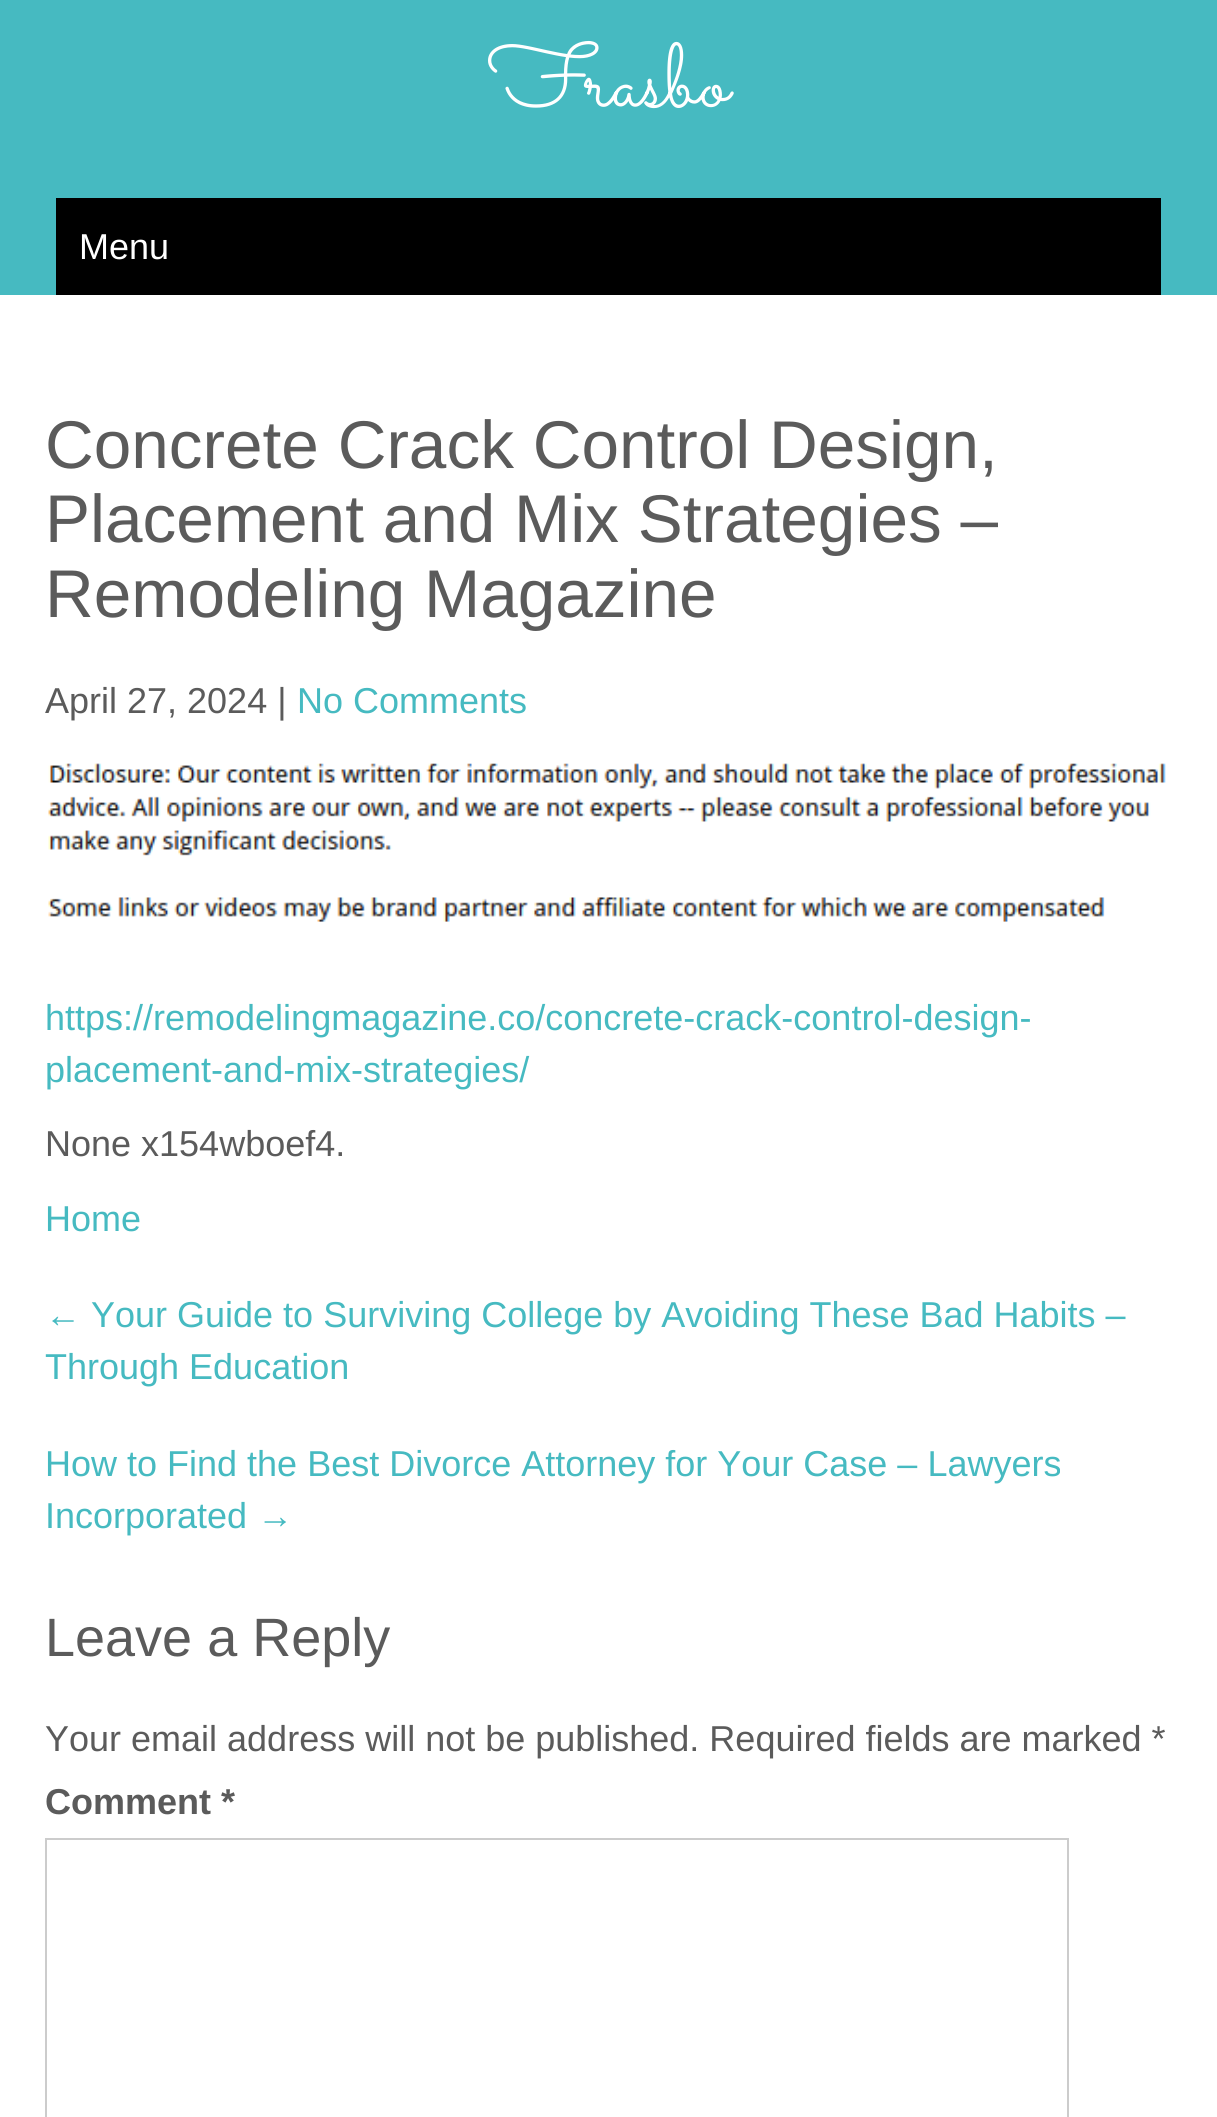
#include <cairo.h>
#include <math.h>
#include <stddef.h>


static void picture(cairo_t *cr, const char *path, double x, double y, double w, double h) {
    cairo_surface_t *image = cairo_image_surface_create_from_png(path);
    cairo_save(cr);
    cairo_set_source_surface(cr, image, x, y);
    cairo_rectangle(cr, x, y, w, h);
    cairo_fill(cr);
    cairo_restore(cr);
    cairo_surface_destroy(image);
}

int main(void) {
    cairo_surface_t *surface = cairo_image_surface_create(CAIRO_FORMAT_RGB24, 1217, 2117);
    cairo_t *cr = cairo_create(surface);
    cairo_font_options_t *options = cairo_font_options_create();
    cairo_font_options_set_hint_metrics(options, CAIRO_HINT_METRICS_OFF);
    cairo_font_options_set_hint_style(options, CAIRO_HINT_STYLE_NONE);
    cairo_set_font_options(cr, options);
    cairo_set_miter_limit(cr, 4);
    cairo_set_source_rgb(cr, 1, 1, 1);
    cairo_paint(cr);
    cairo_set_source_rgb(cr, 0.275, 0.729, 0.757);
    cairo_rectangle(cr, 0, 0, 1217, 295);
    cairo_fill(cr);
    cairo_select_font_face(cr, "Sacramento", CAIRO_FONT_SLANT_NORMAL, CAIRO_FONT_WEIGHT_NORMAL);
    cairo_set_font_size(cr, 90);
    cairo_set_source_rgb(cr, 1, 1, 1);
    cairo_move_to(cr, 488, 106);
    cairo_show_text(cr, "Frasbo");
    cairo_set_source_rgb(cr, 0, 0, 0);
    cairo_rectangle(cr, 56, 198, 1105, 97);
    cairo_fill(cr);
    cairo_select_font_face(cr, "Liberation Sans", CAIRO_FONT_SLANT_NORMAL, CAIRO_FONT_WEIGHT_NORMAL);
    cairo_set_font_size(cr, 36);
    cairo_set_source_rgb(cr, 1, 1, 1);
    cairo_move_to(cr, 79, 259);
    cairo_show_text(cr, "Menu");
    cairo_set_font_size(cr, 67.5);
    cairo_set_source_rgb(cr, 0.357, 0.357, 0.357);
    cairo_move_to(cr, 45, 468);
    cairo_show_text(cr, "Concrete Crack Control Design,");
    cairo_move_to(cr, 45, 542);
    cairo_show_text(cr, "Placement and Mix Strategies –");
    cairo_move_to(cr, 45, 617);
    cairo_show_text(cr, "Remodeling Magazine");
    cairo_set_font_size(cr, 36);
    cairo_move_to(cr, 45, 713);
    cairo_show_text(cr, "April 27, 2024 |");
    cairo_set_source_rgb(cr, 0.275, 0.729, 0.757);
    cairo_move_to(cr, 297, 713);
    cairo_show_text(cr, "No Comments");
    picture(cr, "img1.png", 48, 763, 1118, 159);
    cairo_move_to(cr, 45, 1030);
    cairo_show_text(cr, "https://remodelingmagazine.co/concrete-crack-control-design-");
    cairo_move_to(cr, 45, 1082);
    cairo_show_text(cr, "placement-and-mix-strategies/");
    cairo_set_source_rgb(cr, 0.357, 0.357, 0.357);
    cairo_move_to(cr, 45, 1156);
    cairo_show_text(cr, "None x154wboef4.");
    cairo_set_source_rgb(cr, 0.275, 0.729, 0.757);
    cairo_move_to(cr, 45, 1231);
    cairo_show_text(cr, "Home");
    cairo_move_to(cr, 45, 1327);
    cairo_show_text(cr, "← Your Guide to Surviving College by Avoiding These Bad Habits –");
    cairo_move_to(cr, 45, 1379);
    cairo_show_text(cr, "Through Education");
    cairo_move_to(cr, 45, 1476);
    cairo_show_text(cr, "How to Find the Best Divorce Attorney for Your Case – Lawyers");
    cairo_move_to(cr, 45, 1528);
    cairo_show_text(cr, "Incorporated →");
    cairo_set_font_size(cr, 54);
    cairo_set_source_rgb(cr, 0.357, 0.357, 0.357);
    cairo_move_to(cr, 45, 1656);
    cairo_show_text(cr, "Leave a Reply");
    cairo_set_font_size(cr, 36);
    cairo_move_to(cr, 45, 1751);
    cairo_show_text(cr, "Your email address will not be published. Required fields are marked *");
    cairo_select_font_face(cr, "Liberation Sans", CAIRO_FONT_SLANT_NORMAL, CAIRO_FONT_WEIGHT_BOLD);
    cairo_move_to(cr, 45, 1814);
    cairo_show_text(cr, "Comment *");
    cairo_rectangle(cr, 46, 1839, 1022, 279);
    cairo_set_source_rgb(cr, 0.8, 0.8, 0.8);
    cairo_stroke(cr);
    cairo_surface_write_to_png(surface, "page.png");
    cairo_font_options_destroy(options);
    cairo_destroy(cr);
    cairo_surface_destroy(surface);
    return 0;
}
